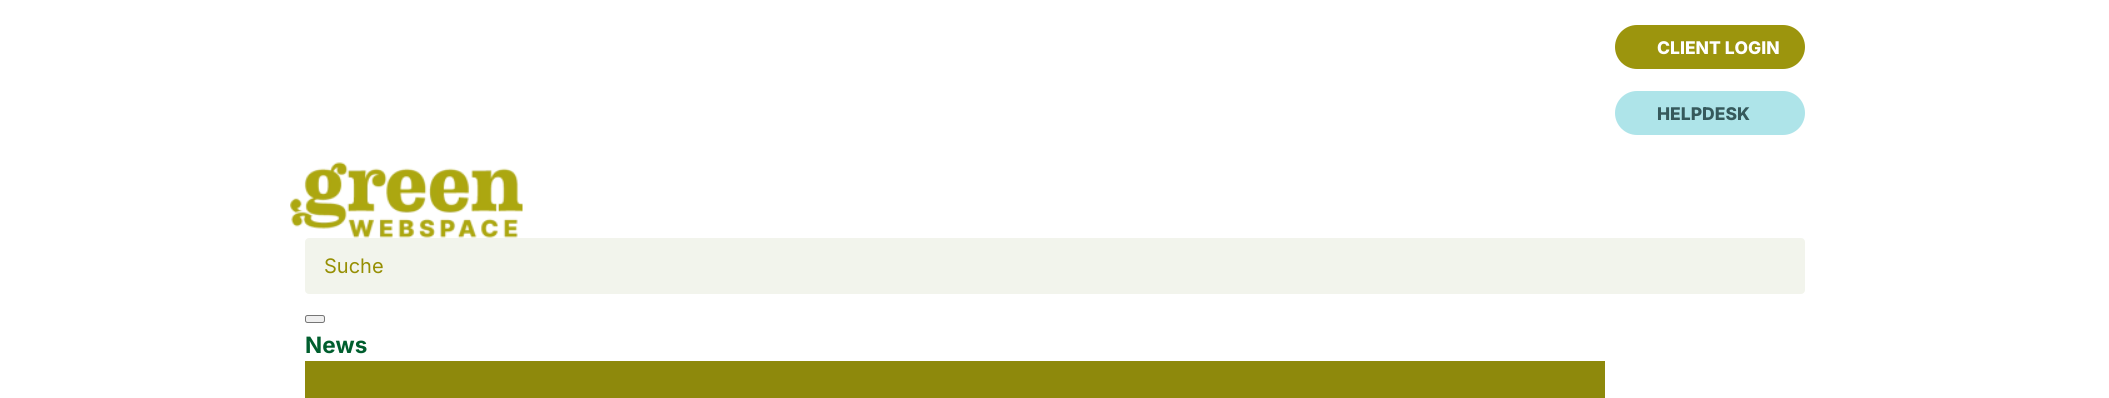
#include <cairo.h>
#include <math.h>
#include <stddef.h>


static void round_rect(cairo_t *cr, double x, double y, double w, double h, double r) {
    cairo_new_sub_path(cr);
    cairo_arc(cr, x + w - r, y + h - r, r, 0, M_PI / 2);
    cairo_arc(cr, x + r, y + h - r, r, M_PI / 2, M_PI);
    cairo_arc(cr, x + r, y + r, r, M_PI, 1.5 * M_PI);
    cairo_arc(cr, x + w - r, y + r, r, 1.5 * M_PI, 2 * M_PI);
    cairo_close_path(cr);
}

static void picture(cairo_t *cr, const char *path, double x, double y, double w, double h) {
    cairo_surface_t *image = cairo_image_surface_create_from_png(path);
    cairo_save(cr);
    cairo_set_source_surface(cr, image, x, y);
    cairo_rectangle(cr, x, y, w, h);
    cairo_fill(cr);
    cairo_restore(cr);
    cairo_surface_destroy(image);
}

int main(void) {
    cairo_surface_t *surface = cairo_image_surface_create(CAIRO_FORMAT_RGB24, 2109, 398);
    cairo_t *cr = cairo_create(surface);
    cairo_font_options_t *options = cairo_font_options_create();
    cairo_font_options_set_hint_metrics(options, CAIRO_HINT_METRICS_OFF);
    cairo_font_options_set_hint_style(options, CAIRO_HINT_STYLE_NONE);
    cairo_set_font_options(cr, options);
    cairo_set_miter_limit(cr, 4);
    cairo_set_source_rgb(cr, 1, 1, 1);
    cairo_paint(cr);
    cairo_set_source_rgb(cr, 0.612, 0.584, 0.051);
    round_rect(cr, 1615, 25, 190, 44, 22);
    cairo_fill(cr);
    cairo_select_font_face(cr, "Inter ExtraBold", CAIRO_FONT_SLANT_NORMAL, CAIRO_FONT_WEIGHT_NORMAL);
    cairo_set_font_size(cr, 17.5);
    cairo_set_source_rgb(cr, 1, 1, 1);
    cairo_move_to(cr, 1657, 54);
    cairo_show_text(cr, "CLIENT LOGIN");
    cairo_set_source_rgb(cr, 0.682, 0.894, 0.914);
    round_rect(cr, 1615, 91, 190, 44, 22);
    cairo_fill(cr);
    cairo_set_source_rgb(cr, 0.212, 0.349, 0.361);
    cairo_move_to(cr, 1657, 120);
    cairo_show_text(cr, "HELPDESK");
    picture(cr, "img1.png", 290, 162, 233, 76);
    cairo_set_source_rgb(cr, 0.949, 0.957, 0.925);
    round_rect(cr, 305, 238, 1500, 56, 4);
    cairo_fill(cr);
    cairo_select_font_face(cr, "Inter", CAIRO_FONT_SLANT_NORMAL, CAIRO_FONT_WEIGHT_NORMAL);
    cairo_set_font_size(cr, 20);
    cairo_set_source_rgb(cr, 0.588, 0.561, 0.012);
    cairo_move_to(cr, 324, 273);
    cairo_show_text(cr, "Suche");
    cairo_set_source_rgb(cr, 0.937, 0.937, 0.937);
    round_rect(cr, 305.5, 315.5, 19, 7, 2);
    cairo_fill_preserve(cr);
    cairo_set_source_rgb(cr, 0.463, 0.463, 0.463);
    cairo_set_line_width(cr, 1);
    cairo_stroke(cr);
    cairo_select_font_face(cr, "Inter", CAIRO_FONT_SLANT_NORMAL, CAIRO_FONT_WEIGHT_BOLD);
    cairo_set_font_size(cr, 22.5);
    cairo_set_source_rgb(cr, 0, 0.369, 0.18);
    cairo_move_to(cr, 305, 353);
    cairo_show_text(cr, "News");
    cairo_set_source_rgb(cr, 0.557, 0.537, 0.047);
    cairo_rectangle(cr, 305, 361, 1300, 37);
    cairo_fill(cr);
    cairo_surface_write_to_png(surface, "page.png");
    cairo_font_options_destroy(options);
    cairo_destroy(cr);
    cairo_surface_destroy(surface);
    return 0;
}
